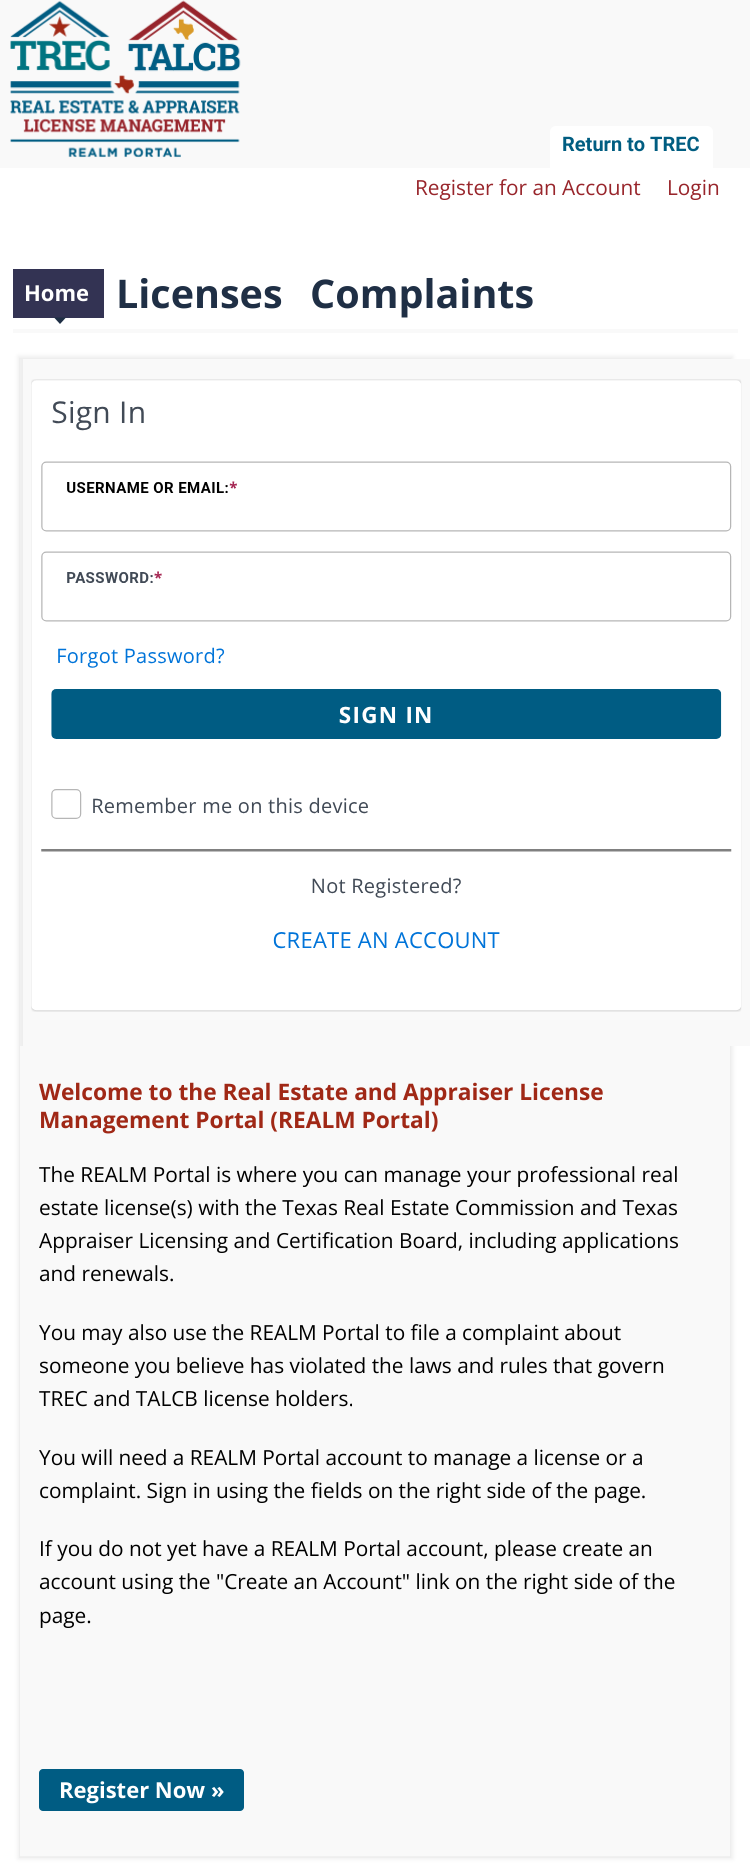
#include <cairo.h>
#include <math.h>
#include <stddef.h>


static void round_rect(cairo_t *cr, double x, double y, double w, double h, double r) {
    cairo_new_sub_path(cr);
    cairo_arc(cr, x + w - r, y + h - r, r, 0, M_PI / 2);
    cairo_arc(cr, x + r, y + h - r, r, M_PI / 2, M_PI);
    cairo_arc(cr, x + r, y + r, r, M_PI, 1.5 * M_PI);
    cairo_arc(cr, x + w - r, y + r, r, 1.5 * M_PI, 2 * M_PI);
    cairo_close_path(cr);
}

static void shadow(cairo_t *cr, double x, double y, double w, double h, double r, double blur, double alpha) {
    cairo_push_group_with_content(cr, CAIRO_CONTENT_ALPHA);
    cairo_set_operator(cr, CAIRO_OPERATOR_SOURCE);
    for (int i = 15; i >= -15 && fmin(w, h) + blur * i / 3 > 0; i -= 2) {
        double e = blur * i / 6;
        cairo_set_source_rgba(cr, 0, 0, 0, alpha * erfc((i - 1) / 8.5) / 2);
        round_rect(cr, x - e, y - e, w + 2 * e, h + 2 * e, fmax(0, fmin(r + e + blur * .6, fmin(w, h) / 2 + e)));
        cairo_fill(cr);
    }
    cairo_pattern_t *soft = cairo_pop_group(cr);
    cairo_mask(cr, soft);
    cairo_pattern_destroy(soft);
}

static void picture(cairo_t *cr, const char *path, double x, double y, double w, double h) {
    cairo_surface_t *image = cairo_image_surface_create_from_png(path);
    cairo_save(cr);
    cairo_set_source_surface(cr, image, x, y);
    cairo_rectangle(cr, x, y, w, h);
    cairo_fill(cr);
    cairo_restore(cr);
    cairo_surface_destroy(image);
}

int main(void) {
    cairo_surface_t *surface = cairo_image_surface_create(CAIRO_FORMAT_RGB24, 750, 1863);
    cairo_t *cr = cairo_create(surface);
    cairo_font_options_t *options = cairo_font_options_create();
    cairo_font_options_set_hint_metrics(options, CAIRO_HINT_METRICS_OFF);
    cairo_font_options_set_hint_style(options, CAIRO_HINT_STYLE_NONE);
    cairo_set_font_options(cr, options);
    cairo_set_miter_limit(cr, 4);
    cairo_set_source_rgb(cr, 1, 1, 1);
    cairo_paint(cr);
    cairo_set_source_rgb(cr, 0.973, 0.973, 0.973);
    cairo_rectangle(cr, 0, 0, 750, 168);
    cairo_fill(cr);
    picture(cr, "img1.png", 10, 0, 231, 158);
    cairo_set_source_rgb(cr, 1, 1, 1);
    cairo_new_path(cr);
    cairo_move_to(cr, 556, 126);
    cairo_line_to(cr, 707, 126);
    cairo_curve_to(cr, 710.5, 126, 713, 128.5, 713, 132);
    cairo_line_to(cr, 713, 168);
    cairo_line_to(cr, 550, 168);
    cairo_line_to(cr, 550, 132);
    cairo_curve_to(cr, 550, 128.5, 552.5, 126, 556, 126);
    cairo_close_path(cr);
    cairo_fill(cr);
    cairo_select_font_face(cr, "Roboto", CAIRO_FONT_SLANT_NORMAL, CAIRO_FONT_WEIGHT_BOLD);
    cairo_set_font_size(cr, 20);
    cairo_set_source_rgb(cr, 0, 0.365, 0.506);
    cairo_move_to(cr, 562, 151);
    cairo_show_text(cr, "Return to TREC");
    cairo_select_font_face(cr, "Open Sans", CAIRO_FONT_SLANT_NORMAL, CAIRO_FONT_WEIGHT_NORMAL);
    cairo_set_font_size(cr, 20.8);
    cairo_set_source_rgb(cr, 0.596, 0.145, 0.169);
    cairo_move_to(cr, 415, 195);
    cairo_show_text(cr, "Register for an Account");
    cairo_move_to(cr, 667, 195);
    cairo_show_text(cr, "Login");
    cairo_set_source_rgb(cr, 0.2, 0.2, 0.325);
    cairo_rectangle(cr, 13, 269, 91, 49);
    cairo_fill(cr);
    cairo_select_font_face(cr, "Open Sans", CAIRO_FONT_SLANT_NORMAL, CAIRO_FONT_WEIGHT_BOLD);
    cairo_set_font_size(cr, 22);
    cairo_set_source_rgb(cr, 1, 1, 1);
    cairo_move_to(cr, 24, 301);
    cairo_show_text(cr, "Home");
    cairo_set_source_rgb(cr, 0.122, 0.184, 0.271);
    cairo_new_path(cr);
    cairo_move_to(cr, 54, 317.5);
    cairo_line_to(cr, 66, 317.5);
    cairo_line_to(cr, 60, 324);
    cairo_close_path(cr);
    cairo_fill(cr);
    cairo_set_font_size(cr, 39.5);
    cairo_move_to(cr, 116, 308);
    cairo_show_text(cr, "Licenses");
    cairo_move_to(cr, 310, 308);
    cairo_show_text(cr, "Complaints");
    cairo_set_source_rgb(cr, 0.973, 0.973, 0.973);
    cairo_rectangle(cr, 13, 329, 725, 4);
    cairo_fill(cr);
    cairo_set_source_rgb(cr, 0.933, 0.933, 0.933);
    shadow(cr, 18, 356, 715, 1503, 0, 2, 1);
    cairo_rectangle(cr, 19.5, 358.5, 711, 1499);
    cairo_set_source_rgb(cr, 0.933, 0.933, 0.933);
    cairo_set_line_width(cr, 1);
    cairo_stroke(cr);
    cairo_set_source_rgb(cr, 0.973, 0.973, 0.973);
    cairo_rectangle(cr, 23, 359, 727, 687);
    cairo_fill(cr);
    picture(cr, "img2.png", 31, 379, 711, 633);
    cairo_rectangle(cr, 20, 1046, 710, 810);
    cairo_fill(cr);
    cairo_set_font_size(cr, 22.7);
    cairo_set_source_rgb(cr, 0.627, 0.157, 0.086);
    cairo_move_to(cr, 39, 1100);
    cairo_show_text(cr, "Welcome to the Real Estate and Appraiser License");
    cairo_move_to(cr, 39, 1128);
    cairo_show_text(cr, "Management Portal (REALM Portal)");
    cairo_select_font_face(cr, "Open Sans", CAIRO_FONT_SLANT_NORMAL, CAIRO_FONT_WEIGHT_NORMAL);
    cairo_set_font_size(cr, 20.8);
    cairo_set_source_rgb(cr, 0, 0, 0);
    cairo_move_to(cr, 39, 1182);
    cairo_show_text(cr, "The REALM Portal is where you can manage your professional real");
    cairo_move_to(cr, 39, 1215);
    cairo_show_text(cr, "estate license(s) with the Texas Real Estate Commission and Texas");
    cairo_move_to(cr, 39, 1248);
    cairo_show_text(cr, "Appraiser Licensing and Certification Board, including applications");
    cairo_move_to(cr, 39, 1281);
    cairo_show_text(cr, "and renewals.");
    cairo_move_to(cr, 39, 1340);
    cairo_show_text(cr, "You may also use the REALM Portal to file a complaint about");
    cairo_move_to(cr, 39, 1373);
    cairo_show_text(cr, "someone you believe has violated the laws and rules that govern");
    cairo_move_to(cr, 39, 1406);
    cairo_show_text(cr, "TREC and TALCB license holders.");
    cairo_move_to(cr, 39, 1465);
    cairo_show_text(cr, "You will need a REALM Portal account to manage a license or a");
    cairo_move_to(cr, 39, 1498);
    cairo_show_text(cr, "complaint. Sign in using the fields on the right side of the page.");
    cairo_move_to(cr, 39, 1556);
    cairo_show_text(cr, "If you do not yet have a REALM Portal account, please create an");
    cairo_move_to(cr, 39, 1589);
    cairo_show_text(cr, "account using the \"Create an Account\" link on the right side of the");
    cairo_move_to(cr, 39, 1623);
    cairo_show_text(cr, "page.");
    cairo_set_source_rgb(cr, 0, 0.361, 0.514);
    round_rect(cr, 39, 1769, 205, 42, 4);
    cairo_fill(cr);
    cairo_select_font_face(cr, "Open Sans", CAIRO_FONT_SLANT_NORMAL, CAIRO_FONT_WEIGHT_BOLD);
    cairo_set_font_size(cr, 22);
    cairo_set_source_rgb(cr, 1, 1, 1);
    cairo_move_to(cr, 59, 1798);
    cairo_show_text(cr, "Register Now »");
    cairo_surface_write_to_png(surface, "page.png");
    cairo_font_options_destroy(options);
    cairo_destroy(cr);
    cairo_surface_destroy(surface);
    return 0;
}
